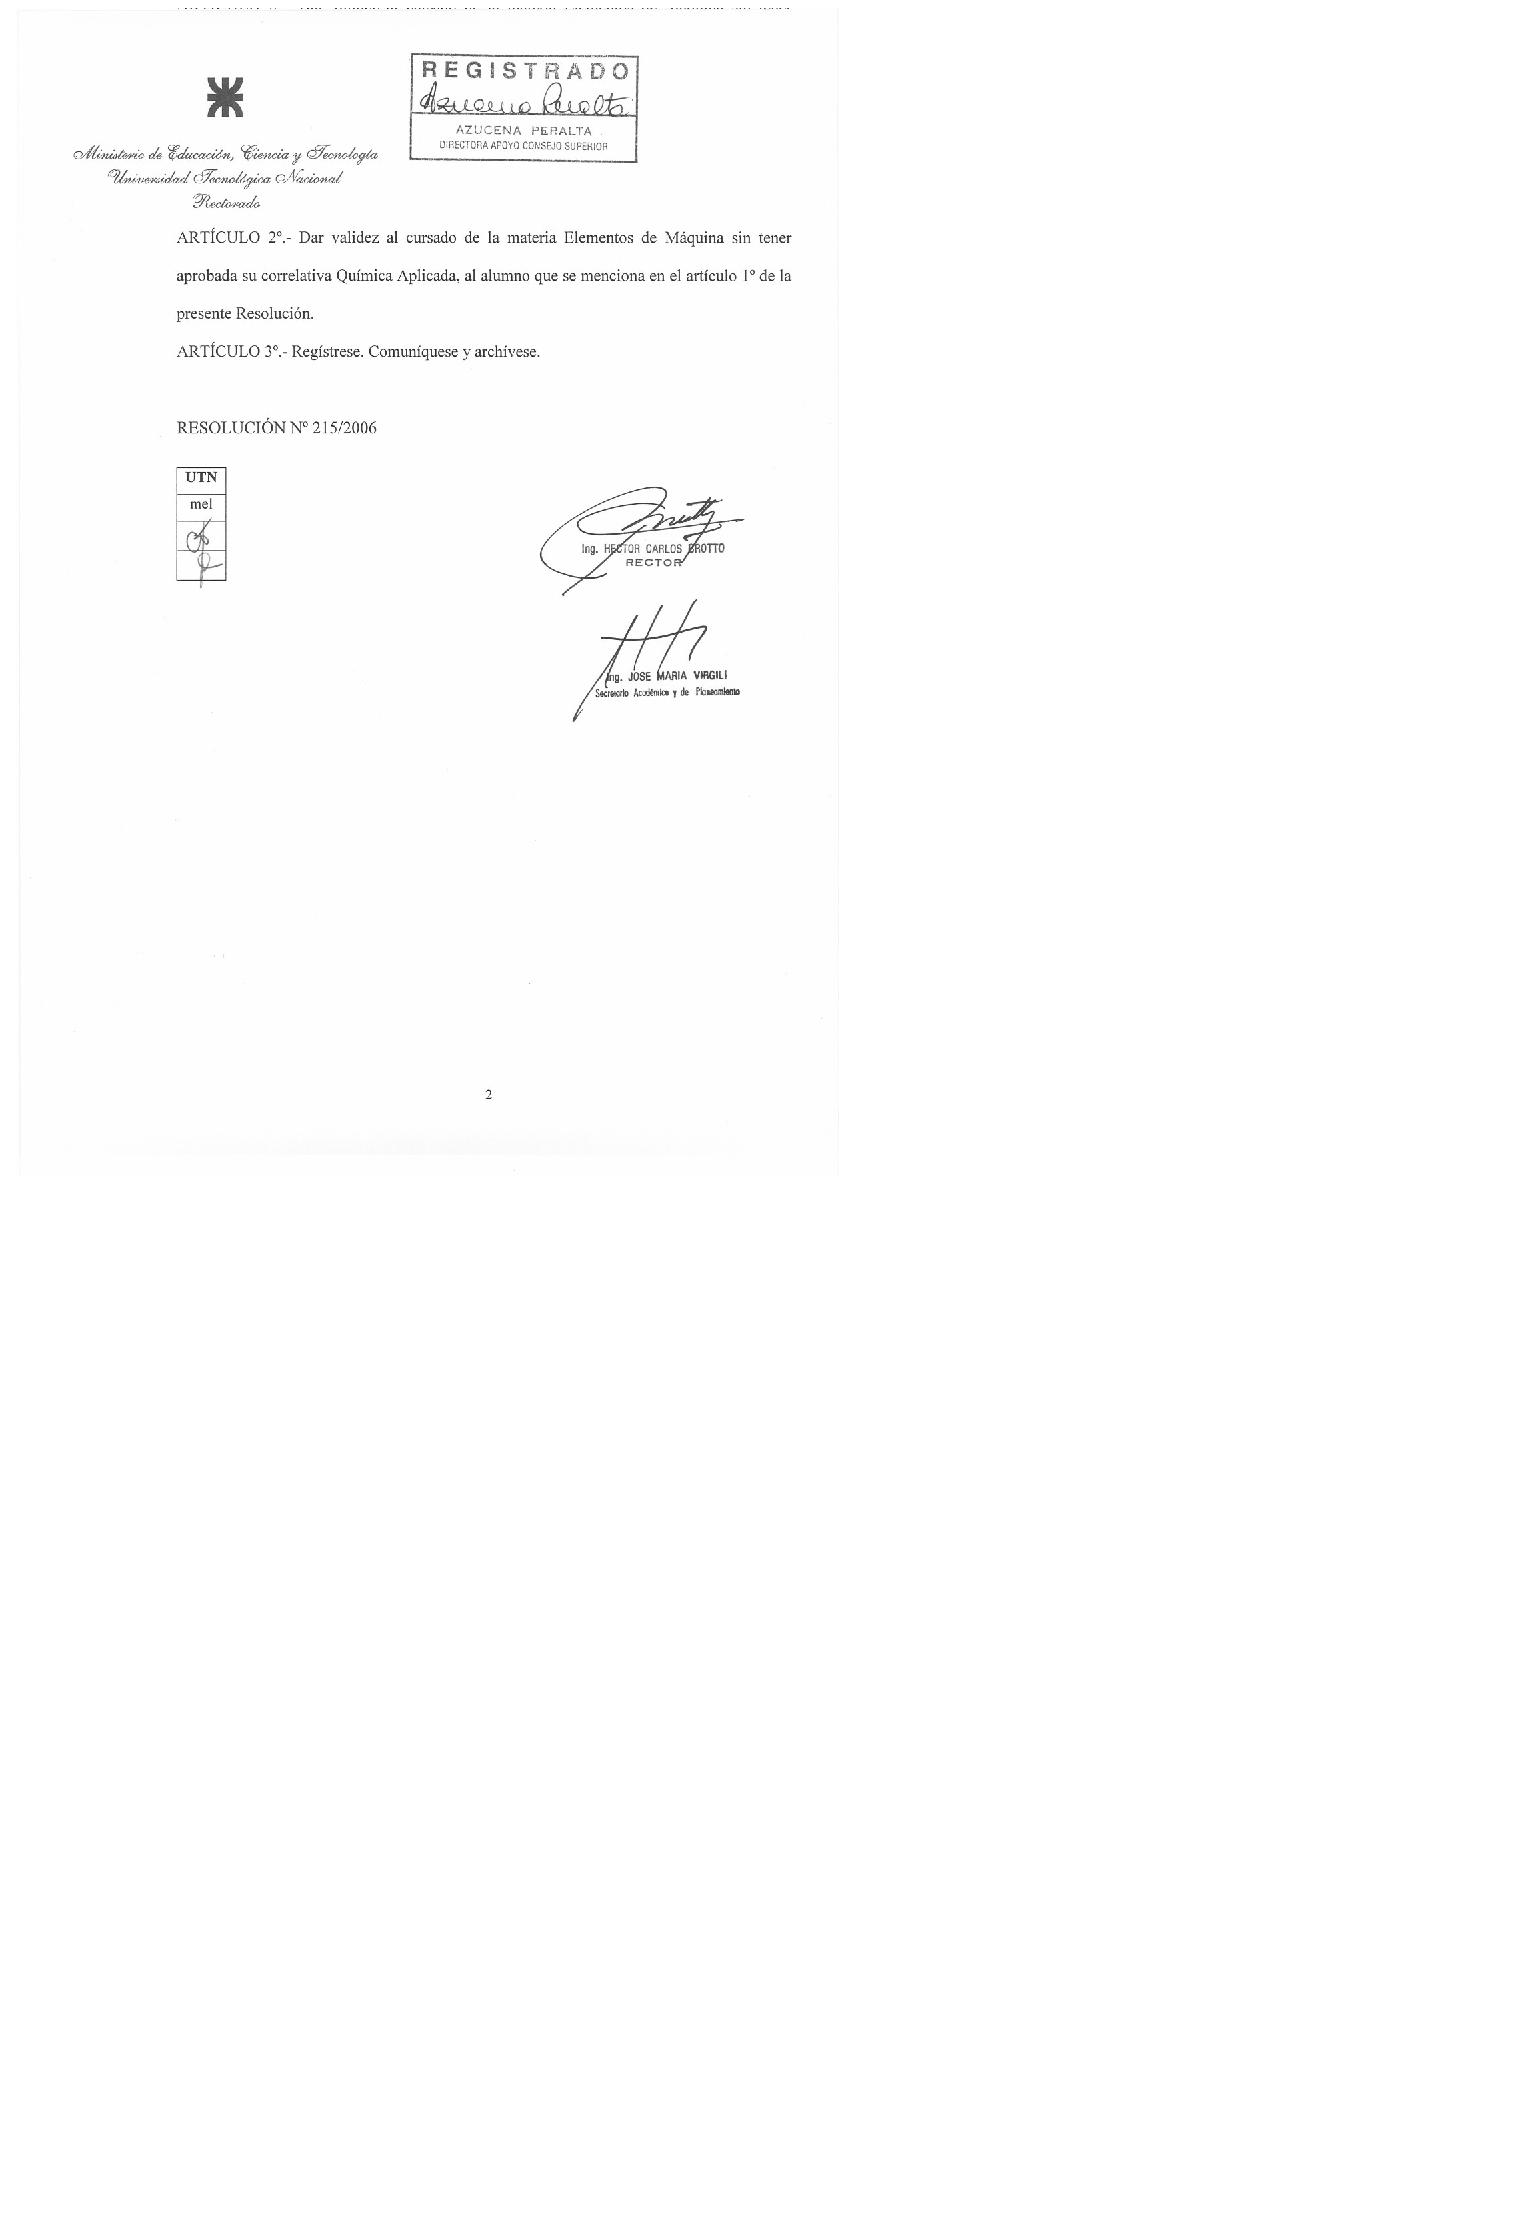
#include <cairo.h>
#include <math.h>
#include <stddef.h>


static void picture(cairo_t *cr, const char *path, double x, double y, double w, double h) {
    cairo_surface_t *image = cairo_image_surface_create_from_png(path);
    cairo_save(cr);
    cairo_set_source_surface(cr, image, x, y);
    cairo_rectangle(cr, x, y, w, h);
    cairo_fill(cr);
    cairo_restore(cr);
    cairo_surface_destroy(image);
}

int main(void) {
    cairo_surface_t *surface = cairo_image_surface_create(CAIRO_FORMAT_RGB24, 1513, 2216);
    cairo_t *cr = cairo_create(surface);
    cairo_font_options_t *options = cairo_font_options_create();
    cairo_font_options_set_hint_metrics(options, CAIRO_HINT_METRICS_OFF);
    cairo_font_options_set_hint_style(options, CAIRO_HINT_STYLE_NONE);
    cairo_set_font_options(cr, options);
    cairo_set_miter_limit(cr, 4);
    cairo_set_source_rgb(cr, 1, 1, 1);
    cairo_paint(cr);
    picture(cr, "img1.png", 16, 8, 823, 1168);
    cairo_surface_write_to_png(surface, "page.png");
    cairo_font_options_destroy(options);
    cairo_destroy(cr);
    cairo_surface_destroy(surface);
    return 0;
}
